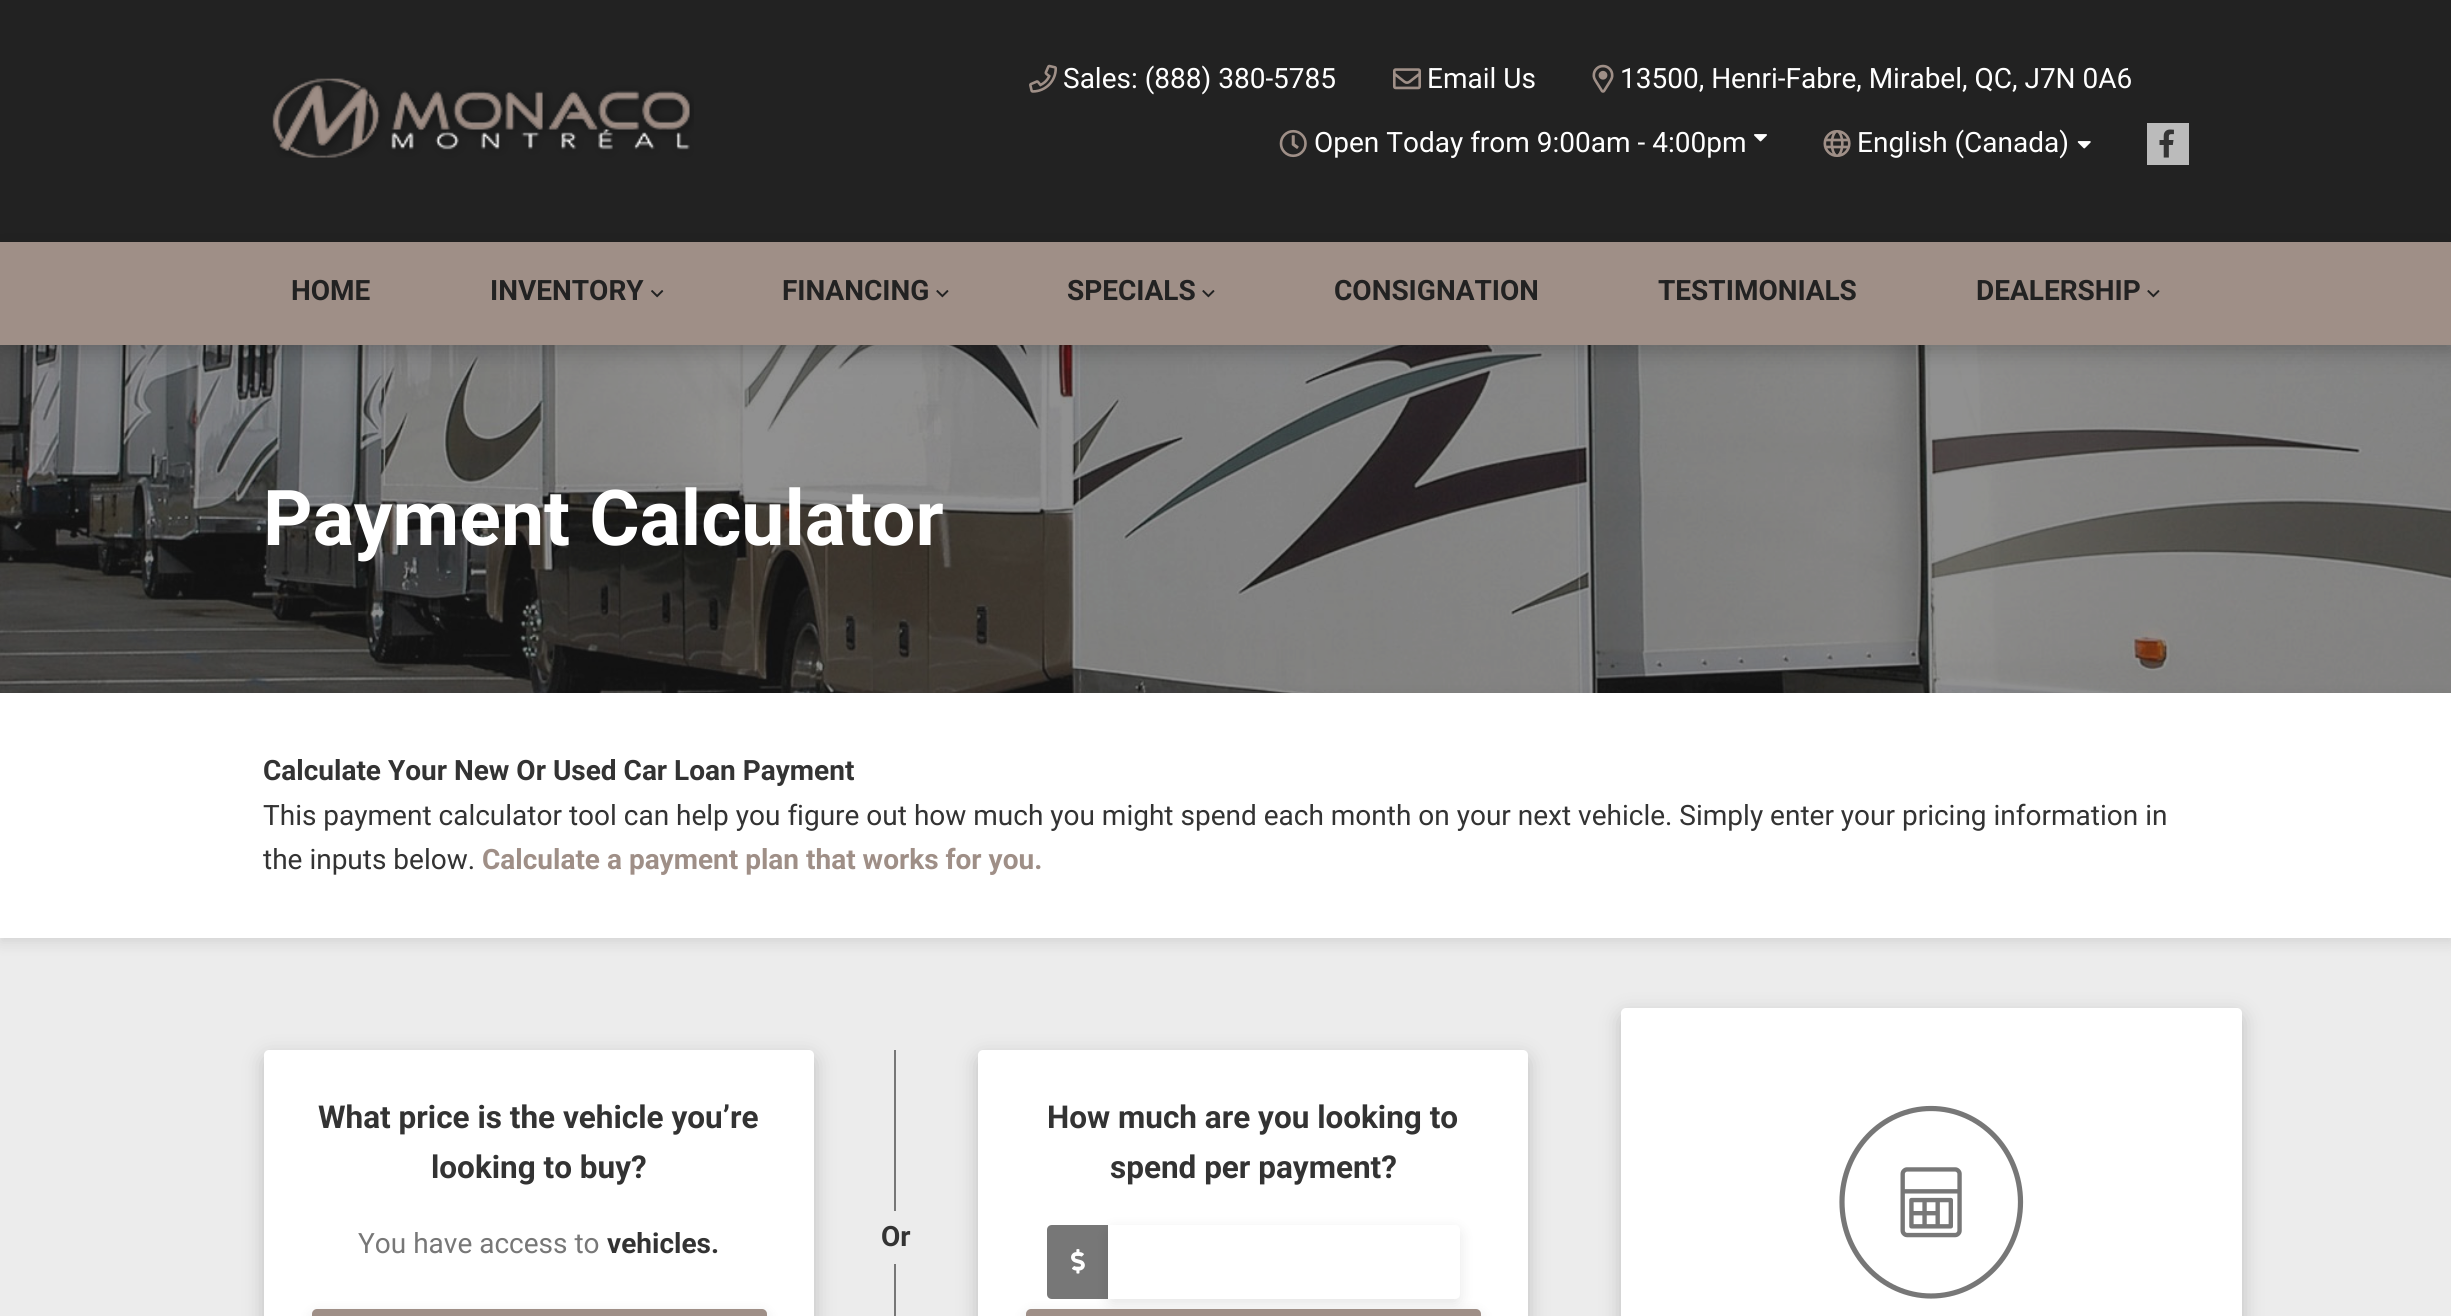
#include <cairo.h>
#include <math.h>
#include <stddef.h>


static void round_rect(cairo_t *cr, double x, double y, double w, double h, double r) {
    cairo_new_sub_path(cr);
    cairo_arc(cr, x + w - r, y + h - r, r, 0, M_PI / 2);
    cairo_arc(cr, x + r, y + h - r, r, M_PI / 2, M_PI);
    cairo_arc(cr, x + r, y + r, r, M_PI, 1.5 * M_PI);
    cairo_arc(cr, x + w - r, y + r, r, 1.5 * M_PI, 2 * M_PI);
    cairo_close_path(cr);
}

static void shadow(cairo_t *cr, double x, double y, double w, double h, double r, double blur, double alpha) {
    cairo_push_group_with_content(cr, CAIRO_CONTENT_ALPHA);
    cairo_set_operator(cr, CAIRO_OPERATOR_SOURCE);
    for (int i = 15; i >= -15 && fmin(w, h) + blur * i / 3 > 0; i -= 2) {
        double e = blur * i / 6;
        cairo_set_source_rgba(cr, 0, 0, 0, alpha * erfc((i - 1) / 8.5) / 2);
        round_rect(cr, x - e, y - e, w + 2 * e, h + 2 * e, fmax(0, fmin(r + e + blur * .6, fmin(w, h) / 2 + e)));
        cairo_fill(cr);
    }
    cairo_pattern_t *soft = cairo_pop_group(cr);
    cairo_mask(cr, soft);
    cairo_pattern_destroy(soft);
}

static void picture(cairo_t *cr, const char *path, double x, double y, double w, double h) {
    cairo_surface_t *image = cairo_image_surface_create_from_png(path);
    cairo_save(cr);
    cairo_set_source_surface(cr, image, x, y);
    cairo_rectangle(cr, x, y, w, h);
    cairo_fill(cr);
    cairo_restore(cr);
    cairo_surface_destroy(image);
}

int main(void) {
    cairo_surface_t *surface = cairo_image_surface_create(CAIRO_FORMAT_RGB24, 2451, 1316);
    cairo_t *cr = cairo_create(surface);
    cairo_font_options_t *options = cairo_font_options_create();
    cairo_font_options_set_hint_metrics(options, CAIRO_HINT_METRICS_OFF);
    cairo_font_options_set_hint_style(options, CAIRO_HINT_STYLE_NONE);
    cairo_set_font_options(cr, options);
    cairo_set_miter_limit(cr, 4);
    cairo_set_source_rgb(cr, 1, 1, 1);
    cairo_paint(cr);
    cairo_set_source_rgb(cr, 0.133, 0.133, 0.133);
    cairo_rectangle(cr, 0, 0, 2451, 242);
    cairo_fill(cr);
    picture(cr, "img1.png", 272, 78, 422, 80);
    picture(cr, "img2.png", 1029, 64, 28, 29);
    cairo_select_font_face(cr, "Roboto", CAIRO_FONT_SLANT_NORMAL, CAIRO_FONT_WEIGHT_NORMAL);
    cairo_set_font_size(cr, 28);
    cairo_set_source_rgb(cr, 1, 1, 1);
    cairo_move_to(cr, 1063, 88);
    cairo_show_text(cr, "Sales: (888) 380-5785");
    picture(cr, "img3.png", 1393, 68, 28, 22);
    cairo_move_to(cr, 1427, 88);
    cairo_show_text(cr, "Email Us");
    picture(cr, "img4.png", 1592, 64, 22, 29);
    cairo_move_to(cr, 1620, 88);
    cairo_show_text(cr, "13500, Henri-Fabre, Mirabel, QC, J7N 0A6");
    picture(cr, "img5.png", 1279, 129, 28, 29);
    cairo_move_to(cr, 1314, 152);
    cairo_show_text(cr, "Open Today from 9:00am - 4:00pm");
    picture(cr, "img6.png", 1754, 134, 13, 8);
    picture(cr, "img7.png", 1823, 130, 28, 27);
    cairo_move_to(cr, 1857, 152);
    cairo_show_text(cr, "English (Canada)");
    picture(cr, "img8.png", 2077, 141, 14, 8);
    cairo_set_source_rgb(cr, 0.733, 0.733, 0.733);
    cairo_rectangle(cr, 2147, 123, 42, 42);
    cairo_fill(cr);
    picture(cr, "img9.png", 2159, 129, 15, 29);
    picture(cr, "img12.png", 0, 345, 2451, 348);
    cairo_set_source_rgb(cr, 0, 0, 0);
    shadow(cr, 0, 249, 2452, 103, 0, 10.5, 0.2);
    cairo_set_source_rgb(cr, 0.624, 0.561, 0.529);
    cairo_rectangle(cr, 0, 242, 2451, 103);
    cairo_fill(cr);
    cairo_select_font_face(cr, "Roboto", CAIRO_FONT_SLANT_NORMAL, CAIRO_FONT_WEIGHT_BOLD);
    cairo_set_source_rgb(cr, 0.133, 0.133, 0.133);
    cairo_move_to(cr, 291, 300);
    cairo_show_text(cr, "HOME");
    cairo_move_to(cr, 490, 300);
    cairo_show_text(cr, "INVENTORY");
    picture(cr, "img10.png", 651, 290, 13, 8);
    cairo_move_to(cr, 782, 300);
    cairo_show_text(cr, "FINANCING");
    picture(cr, "img11.png", 936, 290, 13, 8);
    cairo_move_to(cr, 1067, 300);
    cairo_show_text(cr, "SPECIALS");
    picture(cr, "img11.png", 1202, 290, 13, 8);
    cairo_move_to(cr, 1334, 300);
    cairo_show_text(cr, "CONSIGNATION");
    cairo_move_to(cr, 1658, 300);
    cairo_show_text(cr, "TESTIMONIALS");
    cairo_move_to(cr, 1976, 300);
    cairo_show_text(cr, "DEALERSHIP");
    picture(cr, "img11.png", 2147, 290, 13, 8);
    cairo_set_font_size(cr, 77);
    cairo_set_source_rgb(cr, 1, 1, 1);
    cairo_move_to(cr, 263, 545);
    cairo_show_text(cr, "Payment Calculator");
    cairo_set_source_rgb(cr, 0.925, 0.925, 0.925);
    cairo_rectangle(cr, 0, 938, 2451, 378);
    cairo_fill(cr);
    cairo_save(cr);
    cairo_set_fill_rule(cr, CAIRO_FILL_RULE_EVEN_ODD);
    cairo_new_path(cr);
    cairo_move_to(cr, 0, 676);
    cairo_line_to(cr, 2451, 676);
    cairo_line_to(cr, 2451, 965);
    cairo_line_to(cr, 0, 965);
    cairo_close_path(cr);
    cairo_move_to(cr, 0, 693);
    cairo_line_to(cr, 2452, 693);
    cairo_line_to(cr, 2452, 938);
    cairo_line_to(cr, 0, 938);
    cairo_close_path(cr);
    cairo_clip(cr);
    cairo_set_source_rgb(cr, 0, 0, 0);
    shadow(cr, 0, 698, 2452, 245, 0, 7, 0.1);
    cairo_restore(cr);
    cairo_set_font_size(cr, 28);
    cairo_set_source_rgb(cr, 0.2, 0.2, 0.2);
    cairo_move_to(cr, 263, 780);
    cairo_show_text(cr, "Calculate Your New Or Used Car Loan Payment");
    cairo_select_font_face(cr, "Roboto", CAIRO_FONT_SLANT_NORMAL, CAIRO_FONT_WEIGHT_NORMAL);
    cairo_move_to(cr, 263, 825);
    cairo_show_text(cr, "This payment calculator tool can help you figure out how much you might spend each month on your next vehicle. Simply enter your pricing information in");
    cairo_move_to(cr, 263, 869);
    cairo_show_text(cr, "the inputs below.");
    cairo_select_font_face(cr, "Roboto", CAIRO_FONT_SLANT_NORMAL, CAIRO_FONT_WEIGHT_BOLD);
    cairo_set_source_rgb(cr, 0.624, 0.561, 0.529);
    cairo_move_to(cr, 482, 869);
    cairo_show_text(cr, "Calculate a payment plan that works for you.");
    cairo_set_source_rgb(cr, 0, 0, 0);
    shadow(cr, 264, 1057, 550, 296, 5, 10.5, 0.2);
    cairo_set_source_rgb(cr, 1, 1, 1);
    round_rect(cr, 264, 1050, 550, 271, 5);
    cairo_fill(cr);
    cairo_set_font_size(cr, 31.5);
    cairo_set_source_rgb(cr, 0.2, 0.2, 0.2);
    cairo_move_to(cr, 318, 1128);
    cairo_show_text(cr, "What price is the vehicle you’re");
    cairo_move_to(cr, 431, 1178);
    cairo_show_text(cr, "looking to buy?");
    cairo_select_font_face(cr, "Roboto", CAIRO_FONT_SLANT_NORMAL, CAIRO_FONT_WEIGHT_NORMAL);
    cairo_set_font_size(cr, 28);
    cairo_set_source_rgb(cr, 0.467, 0.467, 0.467);
    cairo_move_to(cr, 358, 1253);
    cairo_show_text(cr, "You have access to");
    cairo_select_font_face(cr, "Roboto", CAIRO_FONT_SLANT_NORMAL, CAIRO_FONT_WEIGHT_BOLD);
    cairo_set_source_rgb(cr, 0.2, 0.2, 0.2);
    cairo_move_to(cr, 607, 1253);
    cairo_show_text(cr, "vehicles.");
    cairo_set_source_rgb(cr, 0, 0, 0);
    shadow(cr, 312, 1314, 455, 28, 5, 7, 0.1);
    cairo_set_source_rgb(cr, 0.624, 0.561, 0.529);
    round_rect(cr, 312, 1309, 455, 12, 5);
    cairo_fill(cr);
    cairo_set_source_rgb(cr, 0, 0, 0);
    shadow(cr, 978, 1057, 550, 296, 5, 10.5, 0.2);
    cairo_set_source_rgb(cr, 1, 1, 1);
    round_rect(cr, 978, 1050, 550, 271, 5);
    cairo_fill(cr);
    cairo_set_font_size(cr, 31.5);
    cairo_set_source_rgb(cr, 0.2, 0.2, 0.2);
    cairo_move_to(cr, 1047, 1128);
    cairo_show_text(cr, "How much are you looking to");
    cairo_move_to(cr, 1110, 1178);
    cairo_show_text(cr, "spend per payment?");
    cairo_set_source_rgb(cr, 0.467, 0.467, 0.467);
    cairo_new_path(cr);
    cairo_move_to(cr, 1052, 1225);
    cairo_line_to(cr, 1108, 1225);
    cairo_line_to(cr, 1108, 1299);
    cairo_line_to(cr, 1052, 1299);
    cairo_curve_to(cr, 1049, 1299, 1047, 1297, 1047, 1294);
    cairo_line_to(cr, 1047, 1230);
    cairo_curve_to(cr, 1047, 1227, 1049, 1225, 1052, 1225);
    cairo_close_path(cr);
    cairo_fill(cr);
    picture(cr, "img13.png", 1071, 1249, 14, 25);
    cairo_set_source_rgb(cr, 0, 0, 0);
    shadow(cr, 1108, 1230, 352, 74, 5, 7, 0.1);
    cairo_set_source_rgb(cr, 1, 1, 1);
    cairo_new_path(cr);
    cairo_move_to(cr, 1108, 1225);
    cairo_line_to(cr, 1455, 1225);
    cairo_curve_to(cr, 1458, 1225, 1460, 1227, 1460, 1230);
    cairo_line_to(cr, 1460, 1294);
    cairo_curve_to(cr, 1460, 1297, 1458, 1299, 1455, 1299);
    cairo_line_to(cr, 1108, 1299);
    cairo_close_path(cr);
    cairo_fill(cr);
    cairo_set_source_rgb(cr, 0, 0, 0);
    shadow(cr, 1026, 1314, 455, 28, 5, 7, 0.1);
    cairo_set_source_rgb(cr, 0.624, 0.561, 0.529);
    round_rect(cr, 1026, 1309, 455, 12, 5);
    cairo_fill(cr);
    cairo_set_source_rgb(cr, 0.467, 0.467, 0.467);
    cairo_rectangle(cr, 894, 1050, 2, 161);
    cairo_fill(cr);
    cairo_set_font_size(cr, 28);
    cairo_set_source_rgb(cr, 0.2, 0.2, 0.2);
    cairo_move_to(cr, 881, 1246);
    cairo_show_text(cr, "Or");
    cairo_set_source_rgb(cr, 0.467, 0.467, 0.467);
    cairo_rectangle(cr, 894, 1264, 2, 52);
    cairo_fill(cr);
    cairo_set_source_rgb(cr, 0, 0, 0);
    shadow(cr, 1621, 1015, 621, 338, 5, 10.5, 0.2);
    cairo_set_source_rgb(cr, 1, 1, 1);
    round_rect(cr, 1621, 1008, 621, 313, 5);
    cairo_fill(cr);
    cairo_new_path(cr);
    cairo_move_to(cr, 1931, 1108.5);
    cairo_curve_to(cr, 1980.5, 1108.5, 2020.5, 1150.5, 2020.5, 1202);
    cairo_curve_to(cr, 2020.5, 1254, 1980.5, 1296, 1931, 1296);
    cairo_curve_to(cr, 1882, 1296, 1842, 1254, 1842, 1202);
    cairo_curve_to(cr, 1842, 1150.5, 1882, 1108.5, 1931, 1108.5);
    cairo_close_path(cr);
    cairo_set_source_rgb(cr, 0.467, 0.467, 0.467);
    cairo_set_line_width(cr, 5.2);
    cairo_stroke(cr);
    picture(cr, "img14.png", 1900, 1167, 62, 71);
    cairo_surface_write_to_png(surface, "page.png");
    cairo_font_options_destroy(options);
    cairo_destroy(cr);
    cairo_surface_destroy(surface);
    return 0;
}
